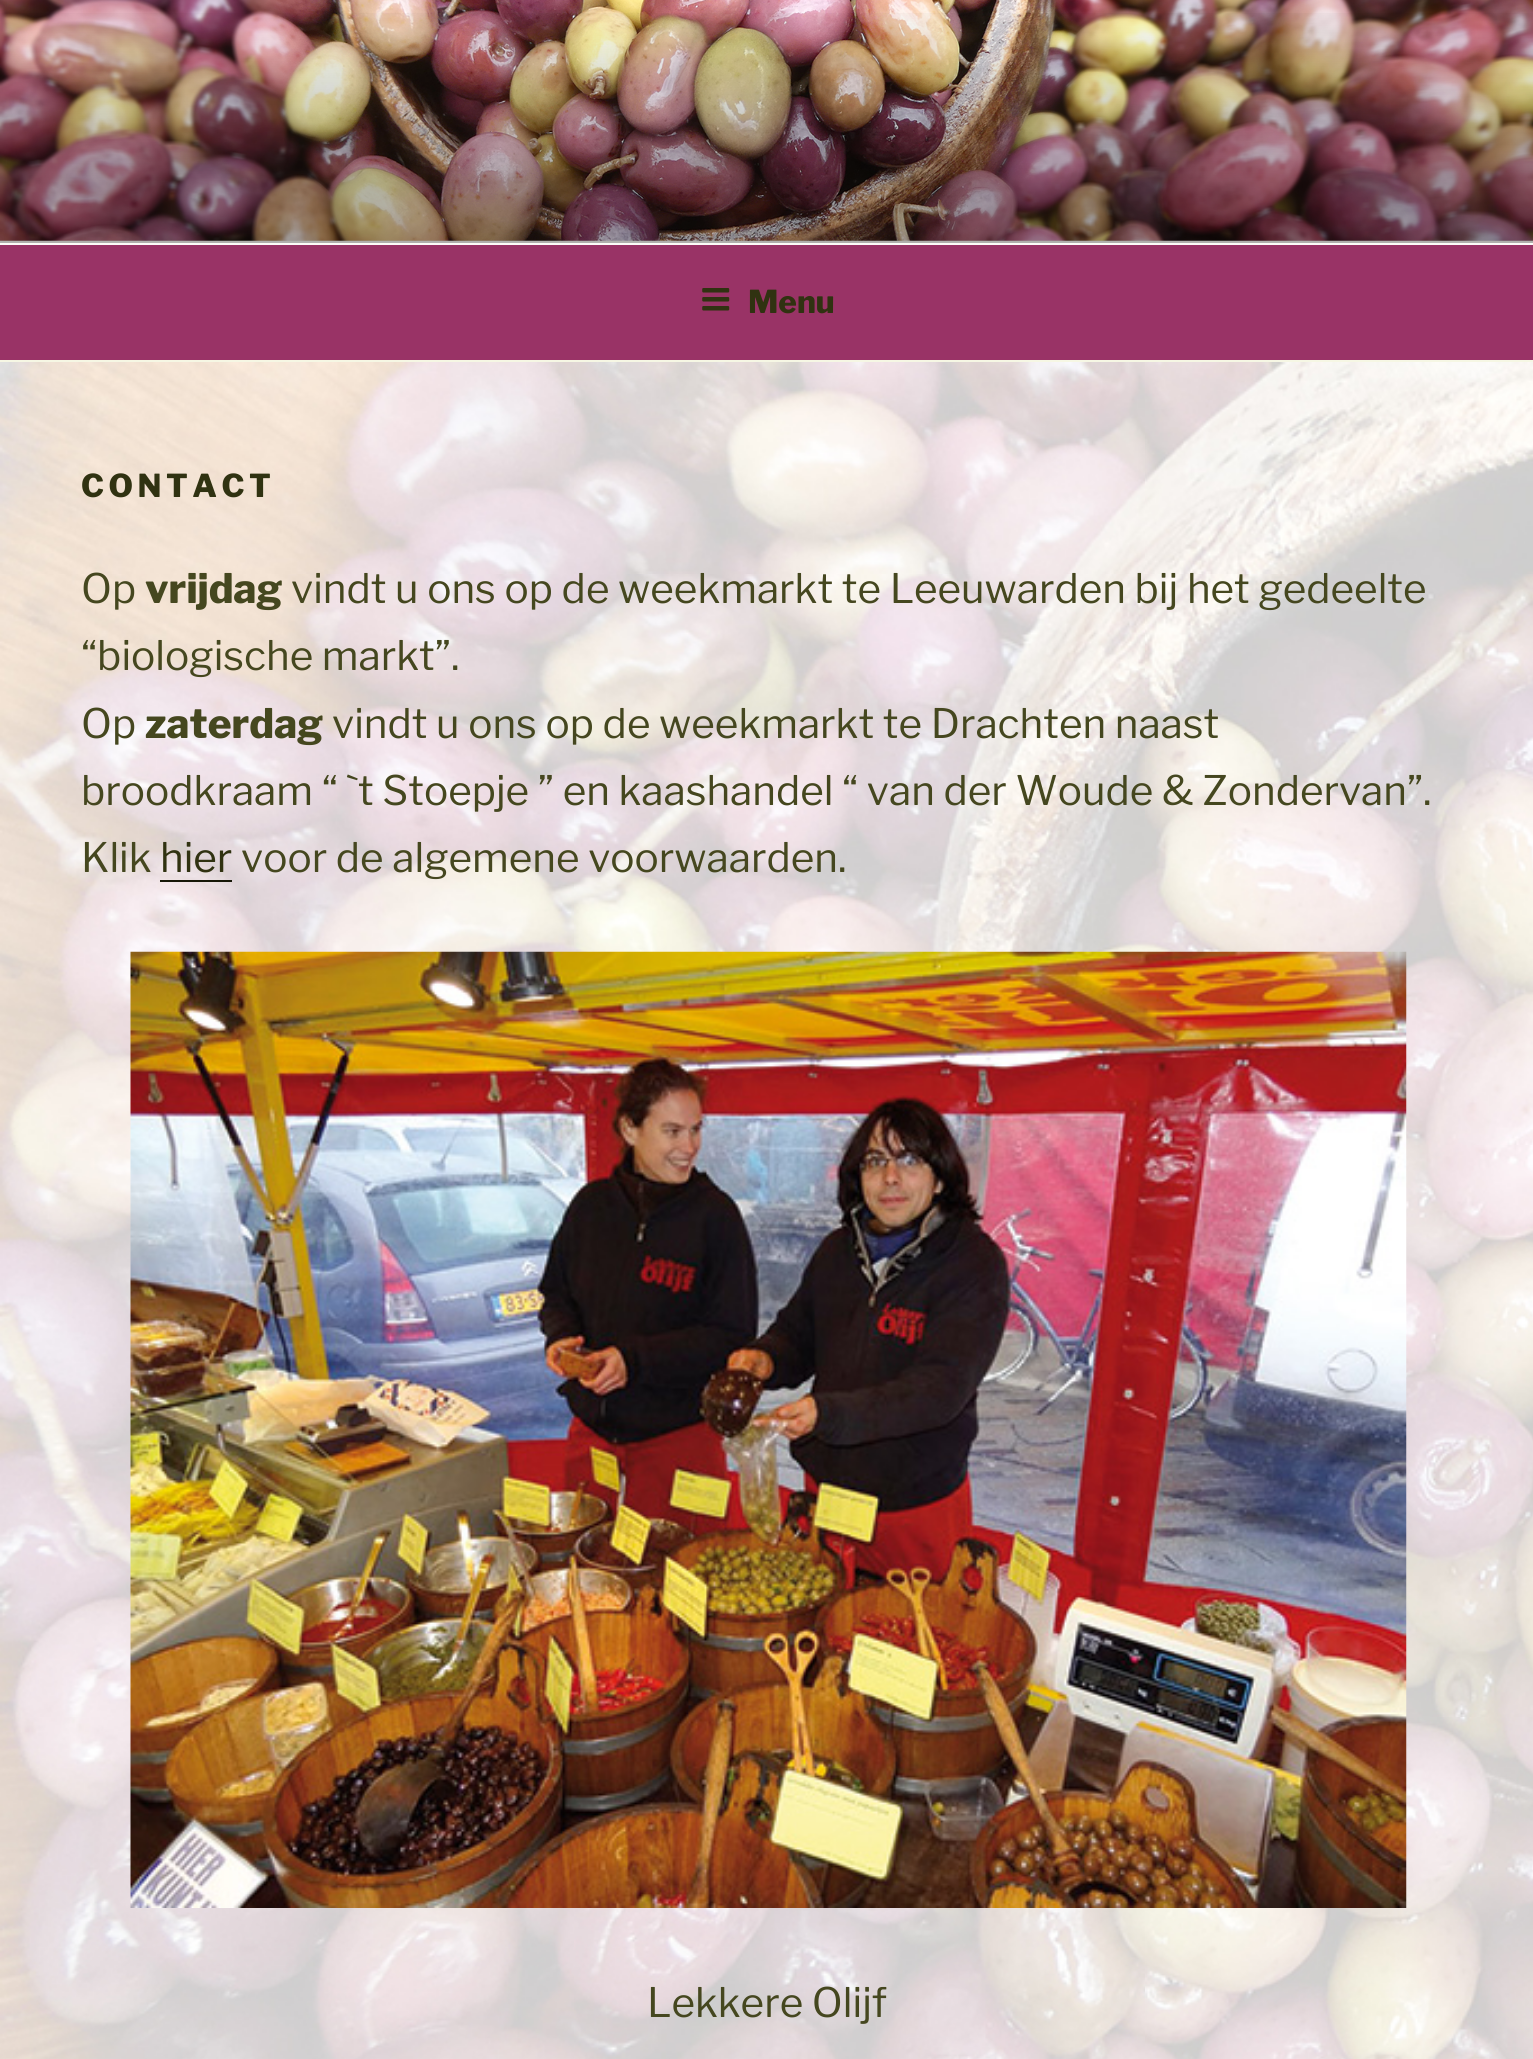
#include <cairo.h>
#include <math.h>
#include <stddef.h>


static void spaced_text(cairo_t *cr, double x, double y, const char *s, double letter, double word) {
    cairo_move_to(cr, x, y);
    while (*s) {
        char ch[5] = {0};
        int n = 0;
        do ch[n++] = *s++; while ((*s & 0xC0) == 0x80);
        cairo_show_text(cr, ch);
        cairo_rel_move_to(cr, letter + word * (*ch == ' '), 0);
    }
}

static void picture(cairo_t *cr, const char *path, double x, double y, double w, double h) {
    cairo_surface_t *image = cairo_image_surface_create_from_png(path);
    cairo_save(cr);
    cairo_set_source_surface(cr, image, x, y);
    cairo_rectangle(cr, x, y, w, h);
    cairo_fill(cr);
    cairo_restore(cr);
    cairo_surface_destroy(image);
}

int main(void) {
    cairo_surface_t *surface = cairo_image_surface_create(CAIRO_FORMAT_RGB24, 1533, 2059);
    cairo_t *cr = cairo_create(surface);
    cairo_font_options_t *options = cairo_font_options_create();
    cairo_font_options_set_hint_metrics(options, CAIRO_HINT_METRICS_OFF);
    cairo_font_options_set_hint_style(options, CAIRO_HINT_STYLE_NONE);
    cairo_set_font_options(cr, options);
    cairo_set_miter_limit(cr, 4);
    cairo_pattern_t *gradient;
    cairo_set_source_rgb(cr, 0.988, 0.988, 0.969);
    cairo_paint(cr);
    picture(cr, "img1.png", 0, 0, 1533, 241);
    gradient = cairo_pattern_create_linear(767, 0, 767, 243);
    cairo_pattern_add_color_stop_rgba(gradient, 0, 0, 0, 0, 0);
    cairo_pattern_add_color_stop_rgba(gradient, 0.75, 0, 0, 0, 0.3);
    cairo_pattern_add_color_stop_rgba(gradient, 1, 0, 0, 0, 0.3);
    cairo_set_source(cr, gradient);
    cairo_pattern_destroy(gradient);
    cairo_rectangle(cr, 0, 13, 1533, 230);
    cairo_fill(cr);
    cairo_set_source_rgb(cr, 0.6, 0.2, 0.4);
    cairo_rectangle(cr, 0, 245, 1533, 115);
    cairo_fill(cr);
    cairo_set_source_rgb(cr, 0.961, 0.965, 0.894);
    cairo_rectangle(cr, 0, 360, 1533, 2);
    cairo_fill(cr);
    picture(cr, "img2.png", 702, 288, 28, 23);
    cairo_select_font_face(cr, "Libre Franklin ExtraBold", CAIRO_FONT_SLANT_NORMAL, CAIRO_FONT_WEIGHT_NORMAL);
    cairo_set_font_size(cr, 31.5);
    cairo_set_source_rgb(cr, 0.188, 0.196, 0.067);
    cairo_move_to(cr, 748, 313);
    cairo_show_text(cr, "Menu");
    picture(cr, "img3.png", 0, 362, 1533, 1697);
    spaced_text(cr, 81, 497, "CONTACT", 4.5, 0);
    cairo_select_font_face(cr, "Libre Franklin", CAIRO_FONT_SLANT_NORMAL, CAIRO_FONT_WEIGHT_NORMAL);
    cairo_set_font_size(cr, 40.5);
    cairo_set_source_rgb(cr, 0.271, 0.278, 0.122);
    cairo_move_to(cr, 81, 603);
    cairo_show_text(cr, "Op");
    cairo_select_font_face(cr, "Libre Franklin ExtraBold", CAIRO_FONT_SLANT_NORMAL, CAIRO_FONT_WEIGHT_NORMAL);
    cairo_move_to(cr, 145, 603);
    cairo_show_text(cr, "vrijdag");
    cairo_select_font_face(cr, "Libre Franklin", CAIRO_FONT_SLANT_NORMAL, CAIRO_FONT_WEIGHT_NORMAL);
    cairo_move_to(cr, 291, 603);
    cairo_show_text(cr, "vindt u ons op de weekmarkt te Leeuwarden bij het gedeelte");
    cairo_move_to(cr, 81, 670);
    cairo_show_text(cr, "“biologische markt”.");
    cairo_move_to(cr, 81, 738);
    cairo_show_text(cr, "Op");
    cairo_select_font_face(cr, "Libre Franklin ExtraBold", CAIRO_FONT_SLANT_NORMAL, CAIRO_FONT_WEIGHT_NORMAL);
    cairo_move_to(cr, 145, 738);
    cairo_show_text(cr, "zaterdag");
    cairo_select_font_face(cr, "Libre Franklin", CAIRO_FONT_SLANT_NORMAL, CAIRO_FONT_WEIGHT_NORMAL);
    cairo_move_to(cr, 332, 738);
    cairo_show_text(cr, "vindt u ons op de weekmarkt te Drachten naast");
    cairo_move_to(cr, 81, 805);
    cairo_show_text(cr, "broodkraam “ `t Stoepje ” en kaashandel “ van der Woude & Zondervan”.");
    cairo_move_to(cr, 81, 872);
    cairo_show_text(cr, "Klik");
    cairo_set_source_rgb(cr, 0.188, 0.196, 0.067);
    cairo_move_to(cr, 160, 872);
    cairo_show_text(cr, "hier");
    cairo_set_source_rgb(cr, 0.086, 0.09, 0.031);
    cairo_rectangle(cr, 160, 880, 72, 2);
    cairo_fill(cr);
    cairo_set_source_rgb(cr, 0.271, 0.278, 0.122);
    cairo_move_to(cr, 241, 872);
    cairo_show_text(cr, "voor de algemene voorwaarden.");
    picture(cr, "img4.png", 130, 951, 1277, 957);
    cairo_move_to(cr, 647, 2017);
    cairo_show_text(cr, "Lekkere Olijf");
    cairo_surface_write_to_png(surface, "page.png");
    cairo_font_options_destroy(options);
    cairo_destroy(cr);
    cairo_surface_destroy(surface);
    return 0;
}
